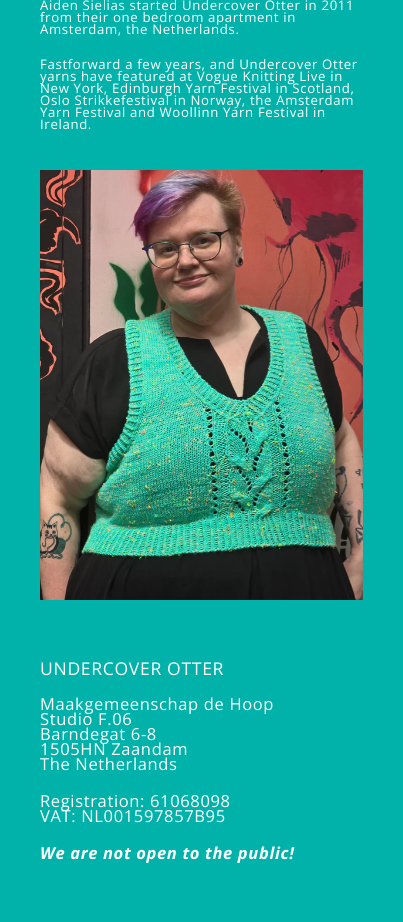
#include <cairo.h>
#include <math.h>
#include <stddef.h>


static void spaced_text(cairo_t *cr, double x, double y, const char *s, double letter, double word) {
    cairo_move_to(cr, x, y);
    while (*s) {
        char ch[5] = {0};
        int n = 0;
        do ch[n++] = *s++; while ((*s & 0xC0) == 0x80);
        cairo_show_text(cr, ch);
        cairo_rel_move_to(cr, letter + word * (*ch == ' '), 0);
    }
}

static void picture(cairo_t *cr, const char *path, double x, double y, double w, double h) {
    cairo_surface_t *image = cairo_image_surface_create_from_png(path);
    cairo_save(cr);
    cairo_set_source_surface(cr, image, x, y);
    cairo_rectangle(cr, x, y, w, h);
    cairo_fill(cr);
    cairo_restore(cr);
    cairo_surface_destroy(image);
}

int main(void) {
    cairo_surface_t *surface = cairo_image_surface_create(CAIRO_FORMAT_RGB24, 403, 922);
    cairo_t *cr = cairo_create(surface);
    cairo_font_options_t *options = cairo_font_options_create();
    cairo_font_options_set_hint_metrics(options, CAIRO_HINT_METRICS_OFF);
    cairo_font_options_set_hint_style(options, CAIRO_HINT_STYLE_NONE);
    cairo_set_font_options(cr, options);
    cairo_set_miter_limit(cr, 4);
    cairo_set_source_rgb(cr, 0, 0.698, 0.667);
    cairo_paint(cr);
    cairo_select_font_face(cr, "Open Sans", CAIRO_FONT_SLANT_NORMAL, CAIRO_FONT_WEIGHT_NORMAL);
    cairo_set_font_size(cr, 13.2);
    cairo_set_source_rgb(cr, 1, 1, 1);
    spaced_text(cr, 40, 10, "Aiden Sielias started Undercover Otter in 2011", 0.65, 0);
    spaced_text(cr, 40, 22, "from their one bedroom apartment in", 0.65, 0);
    spaced_text(cr, 40, 34, "Amsterdam, the Netherlands.", 0.65, 0);
    spaced_text(cr, 40, 69, "Fastforward a few years, and Undercover Otter", 0.65, 0);
    spaced_text(cr, 40, 81, "yarns have featured at Vogue Knitting Live in", 0.65, 0);
    spaced_text(cr, 40, 93, "New York, Edinburgh Yarn Festival in Scotland,", 0.65, 0);
    spaced_text(cr, 40, 105, "Oslo Strikkefestival in Norway, the Amsterdam", 0.65, 0);
    spaced_text(cr, 40, 117, "Yarn Festival and Woollinn Yarn Festival in", 0.65, 0);
    spaced_text(cr, 40, 129, "Ireland.", 0.65, 0);
    picture(cr, "img1.png", 40, 170, 323, 430);
    cairo_set_font_size(cr, 17.6);
    spaced_text(cr, 40, 675, "UNDERCOVER OTTER", 0.65, 0);
    cairo_set_font_size(cr, 16.5);
    spaced_text(cr, 40, 710, "Maakgemeenschap de Hoop", 0.65, 0);
    spaced_text(cr, 40, 725, "Studio F.06", 0.65, 0);
    spaced_text(cr, 40, 740, "Barndegat 6-8", 0.65, 0);
    spaced_text(cr, 40, 755, "1505HN Zaandam", 0.65, 0);
    spaced_text(cr, 40, 770, "The Netherlands", 0.65, 0);
    spaced_text(cr, 40, 807, "Registration: 61068098", 0.65, 0);
    spaced_text(cr, 40, 822, "VAT: NL001597857B95", 0.65, 0);
    cairo_select_font_face(cr, "Open Sans", CAIRO_FONT_SLANT_ITALIC, CAIRO_FONT_WEIGHT_BOLD);
    spaced_text(cr, 40, 859, "We are not open to the public!", 0.65, 0);
    cairo_surface_write_to_png(surface, "page.png");
    cairo_font_options_destroy(options);
    cairo_destroy(cr);
    cairo_surface_destroy(surface);
    return 0;
}
